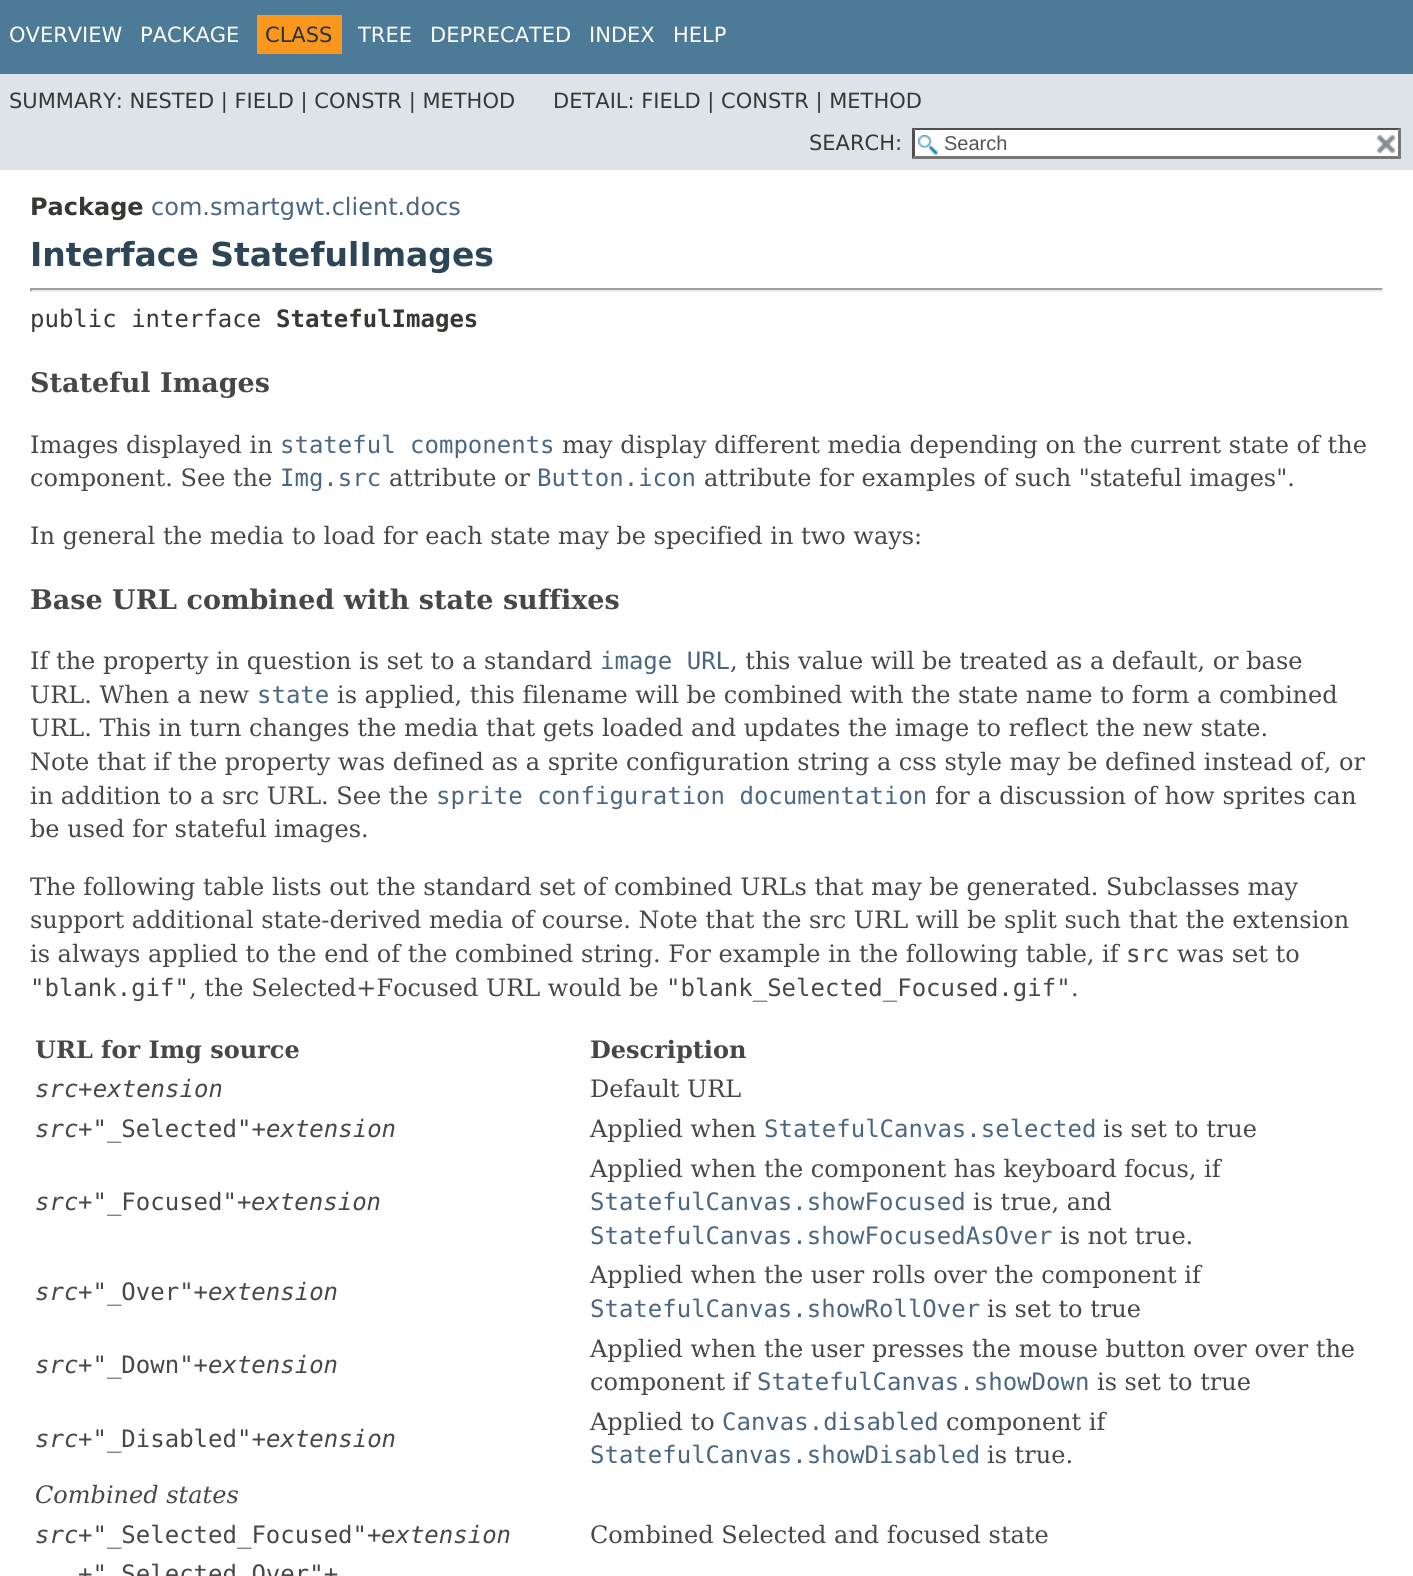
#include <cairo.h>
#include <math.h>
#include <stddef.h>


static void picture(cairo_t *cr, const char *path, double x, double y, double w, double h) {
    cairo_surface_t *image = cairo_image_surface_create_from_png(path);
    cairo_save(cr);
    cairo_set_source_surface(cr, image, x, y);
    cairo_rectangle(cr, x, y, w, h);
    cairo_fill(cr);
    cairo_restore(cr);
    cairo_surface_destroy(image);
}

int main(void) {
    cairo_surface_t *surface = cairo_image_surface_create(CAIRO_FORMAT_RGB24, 1413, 1576);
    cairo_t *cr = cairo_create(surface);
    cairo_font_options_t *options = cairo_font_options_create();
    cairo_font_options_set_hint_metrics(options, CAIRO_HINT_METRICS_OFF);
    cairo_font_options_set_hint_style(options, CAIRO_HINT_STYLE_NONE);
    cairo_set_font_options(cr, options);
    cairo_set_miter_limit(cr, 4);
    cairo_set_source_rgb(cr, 1, 1, 1);
    cairo_paint(cr);
    cairo_set_source_rgb(cr, 0.302, 0.478, 0.592);
    cairo_rectangle(cr, 0, 0, 1413, 74);
    cairo_fill(cr);
    cairo_select_font_face(cr, "DejaVu Sans", CAIRO_FONT_SLANT_NORMAL, CAIRO_FONT_WEIGHT_NORMAL);
    cairo_set_font_size(cr, 21);
    cairo_set_source_rgb(cr, 1, 1, 1);
    cairo_move_to(cr, 9, 42);
    cairo_show_text(cr, "OVERVIEW");
    cairo_move_to(cr, 140, 42);
    cairo_show_text(cr, "PACKAGE");
    cairo_set_source_rgb(cr, 0.973, 0.596, 0.114);
    cairo_rectangle(cr, 257, 15, 85, 39);
    cairo_fill(cr);
    cairo_set_source_rgb(cr, 0.145, 0.204, 0.255);
    cairo_move_to(cr, 265, 42);
    cairo_show_text(cr, "CLASS");
    cairo_set_source_rgb(cr, 1, 1, 1);
    cairo_move_to(cr, 358, 42);
    cairo_show_text(cr, "TREE");
    cairo_move_to(cr, 430, 42);
    cairo_show_text(cr, "DEPRECATED");
    cairo_move_to(cr, 589, 42);
    cairo_show_text(cr, "INDEX");
    cairo_move_to(cr, 673, 42);
    cairo_show_text(cr, "HELP");
    cairo_set_source_rgb(cr, 0.871, 0.89, 0.914);
    cairo_rectangle(cr, 0, 74, 1413, 96);
    cairo_fill(cr);
    cairo_set_source_rgb(cr, 0.208, 0.22, 0.2);
    cairo_move_to(cr, 9, 108);
    cairo_show_text(cr, "SUMMARY: NESTED | FIELD | CONSTR | METHOD");
    cairo_move_to(cr, 553, 108);
    cairo_show_text(cr, "DETAIL: FIELD | CONSTR | METHOD");
    cairo_move_to(cr, 809, 150);
    cairo_show_text(cr, "SEARCH:");
    cairo_set_source_rgb(cr, 1, 1, 1);
    cairo_rectangle(cr, 912, 128, 489, 31);
    cairo_fill(cr);
    picture(cr, "img1.png", 918, 135, 20, 20);
    cairo_set_source_rgb(cr, 0.31, 0.31, 0.31);
    cairo_new_path(cr);
    cairo_move_to(cr, 912, 128);
    cairo_line_to(cr, 1401, 128);
    cairo_line_to(cr, 1398, 130);
    cairo_line_to(cr, 915, 130);
    cairo_close_path(cr);
    cairo_fill(cr);
    cairo_set_source_rgb(cr, 0.463, 0.463, 0.463);
    cairo_new_path(cr);
    cairo_move_to(cr, 1401, 127.5);
    cairo_line_to(cr, 1401, 159);
    cairo_line_to(cr, 1398, 156);
    cairo_line_to(cr, 1398, 130.5);
    cairo_close_path(cr);
    cairo_fill(cr);
    cairo_new_path(cr);
    cairo_move_to(cr, 1401, 159);
    cairo_line_to(cr, 912, 159);
    cairo_line_to(cr, 915, 156);
    cairo_line_to(cr, 1398, 156);
    cairo_close_path(cr);
    cairo_fill(cr);
    cairo_set_source_rgb(cr, 0.31, 0.31, 0.31);
    cairo_new_path(cr);
    cairo_move_to(cr, 912, 159);
    cairo_line_to(cr, 912, 127.5);
    cairo_line_to(cr, 915, 130.5);
    cairo_line_to(cr, 915, 156);
    cairo_close_path(cr);
    cairo_fill(cr);
    cairo_select_font_face(cr, "Liberation Sans", CAIRO_FONT_SLANT_NORMAL, CAIRO_FONT_WEIGHT_NORMAL);
    cairo_set_font_size(cr, 20);
    cairo_set_source_rgb(cr, 0.329, 0.329, 0.329);
    cairo_move_to(cr, 944, 150);
    cairo_show_text(cr, "Search");
    picture(cr, "img2.png", 1376, 134, 20, 20);
    cairo_select_font_face(cr, "DejaVu Sans", CAIRO_FONT_SLANT_NORMAL, CAIRO_FONT_WEIGHT_BOLD);
    cairo_set_font_size(cr, 24);
    cairo_set_source_rgb(cr, 0.208, 0.22, 0.2);
    cairo_move_to(cr, 30, 215);
    cairo_show_text(cr, "Package");
    cairo_select_font_face(cr, "DejaVu Sans", CAIRO_FONT_SLANT_NORMAL, CAIRO_FONT_WEIGHT_NORMAL);
    cairo_set_source_rgb(cr, 0.29, 0.404, 0.51);
    cairo_move_to(cr, 151, 215);
    cairo_show_text(cr, "com.smartgwt.client.docs");
    cairo_select_font_face(cr, "DejaVu Sans", CAIRO_FONT_SLANT_NORMAL, CAIRO_FONT_WEIGHT_BOLD);
    cairo_set_font_size(cr, 33);
    cairo_set_source_rgb(cr, 0.173, 0.271, 0.341);
    cairo_move_to(cr, 30, 266);
    cairo_show_text(cr, "Interface StatefulImages");
    cairo_set_source_rgb(cr, 0.624, 0.624, 0.624);
    cairo_rectangle(cr, 30, 288, 1353, 2);
    cairo_fill(cr);
    cairo_set_source_rgb(cr, 0.933, 0.933, 0.933);
    cairo_rectangle(cr, 1382, 288, 2, 3);
    cairo_fill(cr);
    cairo_rectangle(cr, 30, 290, 1353, 2);
    cairo_fill(cr);
    cairo_set_source_rgb(cr, 0.624, 0.624, 0.624);
    cairo_rectangle(cr, 30, 288, 2, 3);
    cairo_fill(cr);
    cairo_select_font_face(cr, "DejaVu Sans Mono", CAIRO_FONT_SLANT_NORMAL, CAIRO_FONT_WEIGHT_NORMAL);
    cairo_set_font_size(cr, 24);
    cairo_set_source_rgb(cr, 0.208, 0.22, 0.2);
    cairo_move_to(cr, 30, 327);
    cairo_show_text(cr, "public interface");
    cairo_select_font_face(cr, "DejaVu Sans Mono", CAIRO_FONT_SLANT_NORMAL, CAIRO_FONT_WEIGHT_BOLD);
    cairo_move_to(cr, 276, 327);
    cairo_show_text(cr, "StatefulImages");
    cairo_select_font_face(cr, "DejaVu Serif", CAIRO_FONT_SLANT_NORMAL, CAIRO_FONT_WEIGHT_BOLD);
    cairo_set_font_size(cr, 27);
    cairo_set_source_rgb(cr, 0.278, 0.278, 0.278);
    cairo_move_to(cr, 30, 392);
    cairo_show_text(cr, "Stateful Images");
    cairo_select_font_face(cr, "DejaVu Serif", CAIRO_FONT_SLANT_NORMAL, CAIRO_FONT_WEIGHT_NORMAL);
    cairo_set_font_size(cr, 24);
    cairo_move_to(cr, 30, 453);
    cairo_show_text(cr, "Images displayed in");
    cairo_select_font_face(cr, "DejaVu Sans Mono", CAIRO_FONT_SLANT_NORMAL, CAIRO_FONT_WEIGHT_NORMAL);
    cairo_set_source_rgb(cr, 0.29, 0.404, 0.51);
    cairo_move_to(cr, 280, 453);
    cairo_show_text(cr, "stateful components");
    cairo_select_font_face(cr, "DejaVu Serif", CAIRO_FONT_SLANT_NORMAL, CAIRO_FONT_WEIGHT_NORMAL);
    cairo_set_source_rgb(cr, 0.278, 0.278, 0.278);
    cairo_move_to(cr, 562, 453);
    cairo_show_text(cr, "may display different media depending on the current state of the");
    cairo_move_to(cr, 30, 486);
    cairo_show_text(cr, "component. See the");
    cairo_select_font_face(cr, "DejaVu Sans Mono", CAIRO_FONT_SLANT_NORMAL, CAIRO_FONT_WEIGHT_NORMAL);
    cairo_set_source_rgb(cr, 0.29, 0.404, 0.51);
    cairo_move_to(cr, 280, 486);
    cairo_show_text(cr, "Img.src");
    cairo_select_font_face(cr, "DejaVu Serif", CAIRO_FONT_SLANT_NORMAL, CAIRO_FONT_WEIGHT_NORMAL);
    cairo_set_source_rgb(cr, 0.278, 0.278, 0.278);
    cairo_move_to(cr, 389, 486);
    cairo_show_text(cr, "attribute or");
    cairo_select_font_face(cr, "DejaVu Sans Mono", CAIRO_FONT_SLANT_NORMAL, CAIRO_FONT_WEIGHT_NORMAL);
    cairo_set_source_rgb(cr, 0.29, 0.404, 0.51);
    cairo_move_to(cr, 537, 486);
    cairo_show_text(cr, "Button.icon");
    cairo_select_font_face(cr, "DejaVu Serif", CAIRO_FONT_SLANT_NORMAL, CAIRO_FONT_WEIGHT_NORMAL);
    cairo_set_source_rgb(cr, 0.278, 0.278, 0.278);
    cairo_move_to(cr, 704, 486);
    cairo_show_text(cr, "attribute for examples of such \"stateful images\".");
    cairo_move_to(cr, 30, 544);
    cairo_show_text(cr, "In general the media to load for each state may be specified in two ways:");
    cairo_select_font_face(cr, "DejaVu Serif", CAIRO_FONT_SLANT_NORMAL, CAIRO_FONT_WEIGHT_BOLD);
    cairo_set_font_size(cr, 27);
    cairo_move_to(cr, 30, 609);
    cairo_show_text(cr, "Base URL combined with state suffixes");
    cairo_select_font_face(cr, "DejaVu Serif", CAIRO_FONT_SLANT_NORMAL, CAIRO_FONT_WEIGHT_NORMAL);
    cairo_set_font_size(cr, 24);
    cairo_move_to(cr, 30, 669);
    cairo_show_text(cr, "If the property in question is set to a standard");
    cairo_select_font_face(cr, "DejaVu Sans Mono", CAIRO_FONT_SLANT_NORMAL, CAIRO_FONT_WEIGHT_NORMAL);
    cairo_set_source_rgb(cr, 0.29, 0.404, 0.51);
    cairo_move_to(cr, 600, 669);
    cairo_show_text(cr, "image URL");
    cairo_select_font_face(cr, "DejaVu Serif", CAIRO_FONT_SLANT_NORMAL, CAIRO_FONT_WEIGHT_NORMAL);
    cairo_set_source_rgb(cr, 0.278, 0.278, 0.278);
    cairo_move_to(cr, 730, 669);
    cairo_show_text(cr, ", this value will be treated as a default, or base");
    cairo_move_to(cr, 30, 703);
    cairo_show_text(cr, "URL. When a new");
    cairo_select_font_face(cr, "DejaVu Sans Mono", CAIRO_FONT_SLANT_NORMAL, CAIRO_FONT_WEIGHT_NORMAL);
    cairo_set_source_rgb(cr, 0.29, 0.404, 0.51);
    cairo_move_to(cr, 257, 703);
    cairo_show_text(cr, "state");
    cairo_select_font_face(cr, "DejaVu Serif", CAIRO_FONT_SLANT_NORMAL, CAIRO_FONT_WEIGHT_NORMAL);
    cairo_set_source_rgb(cr, 0.278, 0.278, 0.278);
    cairo_move_to(cr, 337, 703);
    cairo_show_text(cr, "is applied, this filename will be combined with the state name to form a combined");
    cairo_move_to(cr, 30, 736);
    cairo_show_text(cr, "URL. This in turn changes the media that gets loaded and updates the image to reflect the new state.");
    cairo_move_to(cr, 30, 770);
    cairo_show_text(cr, "Note that if the property was defined as a sprite configuration string a css style may be defined instead of, or");
    cairo_move_to(cr, 30, 804);
    cairo_show_text(cr, "in addition to a src URL. See the");
    cairo_select_font_face(cr, "DejaVu Sans Mono", CAIRO_FONT_SLANT_NORMAL, CAIRO_FONT_WEIGHT_NORMAL);
    cairo_set_source_rgb(cr, 0.29, 0.404, 0.51);
    cairo_move_to(cr, 436, 804);
    cairo_show_text(cr, "sprite configuration documentation");
    cairo_select_font_face(cr, "DejaVu Serif", CAIRO_FONT_SLANT_NORMAL, CAIRO_FONT_WEIGHT_NORMAL);
    cairo_set_source_rgb(cr, 0.278, 0.278, 0.278);
    cairo_move_to(cr, 935, 804);
    cairo_show_text(cr, "for a discussion of how sprites can");
    cairo_move_to(cr, 30, 837);
    cairo_show_text(cr, "be used for stateful images.");
    cairo_move_to(cr, 30, 895);
    cairo_show_text(cr, "The following table lists out the standard set of combined URLs that may be generated. Subclasses may");
    cairo_move_to(cr, 30, 928);
    cairo_show_text(cr, "support additional state-derived media of course. Note that the src URL will be split such that the extension");
    cairo_move_to(cr, 30, 962);
    cairo_show_text(cr, "is always applied to the end of the combined string. For example in the following table, if");
    cairo_select_font_face(cr, "DejaVu Sans Mono", CAIRO_FONT_SLANT_NORMAL, CAIRO_FONT_WEIGHT_NORMAL);
    cairo_move_to(cr, 1126, 962);
    cairo_show_text(cr, "src");
    cairo_select_font_face(cr, "DejaVu Serif", CAIRO_FONT_SLANT_NORMAL, CAIRO_FONT_WEIGHT_NORMAL);
    cairo_move_to(cr, 1177, 962);
    cairo_show_text(cr, "was set to");
    cairo_select_font_face(cr, "DejaVu Sans Mono", CAIRO_FONT_SLANT_NORMAL, CAIRO_FONT_WEIGHT_NORMAL);
    cairo_move_to(cr, 30, 996);
    cairo_show_text(cr, "\"blank.gif\"");
    cairo_select_font_face(cr, "DejaVu Serif", CAIRO_FONT_SLANT_NORMAL, CAIRO_FONT_WEIGHT_NORMAL);
    cairo_move_to(cr, 189, 996);
    cairo_show_text(cr, ", the Selected+Focused URL would be");
    cairo_select_font_face(cr, "DejaVu Sans Mono", CAIRO_FONT_SLANT_NORMAL, CAIRO_FONT_WEIGHT_NORMAL);
    cairo_move_to(cr, 666, 996);
    cairo_show_text(cr, "\"blank_Selected_Focused.gif\"");
    cairo_select_font_face(cr, "DejaVu Serif", CAIRO_FONT_SLANT_NORMAL, CAIRO_FONT_WEIGHT_NORMAL);
    cairo_move_to(cr, 1071, 996);
    cairo_show_text(cr, ".");
    cairo_select_font_face(cr, "DejaVu Serif", CAIRO_FONT_SLANT_NORMAL, CAIRO_FONT_WEIGHT_BOLD);
    cairo_move_to(cr, 35, 1058);
    cairo_show_text(cr, "URL for Img source");
    cairo_move_to(cr, 590, 1058);
    cairo_show_text(cr, "Description");
    cairo_select_font_face(cr, "DejaVu Sans Mono", CAIRO_FONT_SLANT_ITALIC, CAIRO_FONT_WEIGHT_NORMAL);
    cairo_move_to(cr, 35, 1097);
    cairo_show_text(cr, "src extension");
    cairo_select_font_face(cr, "DejaVu Sans Mono", CAIRO_FONT_SLANT_NORMAL, CAIRO_FONT_WEIGHT_NORMAL);
    cairo_move_to(cr, 78, 1097);
    cairo_show_text(cr, "+");
    cairo_select_font_face(cr, "DejaVu Serif", CAIRO_FONT_SLANT_NORMAL, CAIRO_FONT_WEIGHT_NORMAL);
    cairo_move_to(cr, 590, 1097);
    cairo_show_text(cr, "Default URL");
    cairo_select_font_face(cr, "DejaVu Sans Mono", CAIRO_FONT_SLANT_ITALIC, CAIRO_FONT_WEIGHT_NORMAL);
    cairo_move_to(cr, 35, 1137);
    cairo_show_text(cr, "src");
    cairo_select_font_face(cr, "DejaVu Sans Mono", CAIRO_FONT_SLANT_NORMAL, CAIRO_FONT_WEIGHT_NORMAL);
    cairo_move_to(cr, 78, 1137);
    cairo_show_text(cr, "+\"_Selected\"+");
    cairo_select_font_face(cr, "DejaVu Sans Mono", CAIRO_FONT_SLANT_ITALIC, CAIRO_FONT_WEIGHT_NORMAL);
    cairo_move_to(cr, 266, 1137);
    cairo_show_text(cr, "extension");
    cairo_select_font_face(cr, "DejaVu Serif", CAIRO_FONT_SLANT_NORMAL, CAIRO_FONT_WEIGHT_NORMAL);
    cairo_move_to(cr, 590, 1137);
    cairo_show_text(cr, "Applied when");
    cairo_select_font_face(cr, "DejaVu Sans Mono", CAIRO_FONT_SLANT_NORMAL, CAIRO_FONT_WEIGHT_NORMAL);
    cairo_set_source_rgb(cr, 0.29, 0.404, 0.51);
    cairo_move_to(cr, 764, 1137);
    cairo_show_text(cr, "StatefulCanvas.selected");
    cairo_select_font_face(cr, "DejaVu Serif", CAIRO_FONT_SLANT_NORMAL, CAIRO_FONT_WEIGHT_NORMAL);
    cairo_set_source_rgb(cr, 0.278, 0.278, 0.278);
    cairo_move_to(cr, 1103, 1137);
    cairo_show_text(cr, "is set to true");
    cairo_select_font_face(cr, "DejaVu Sans Mono", CAIRO_FONT_SLANT_ITALIC, CAIRO_FONT_WEIGHT_NORMAL);
    cairo_move_to(cr, 35, 1210);
    cairo_show_text(cr, "src");
    cairo_select_font_face(cr, "DejaVu Sans Mono", CAIRO_FONT_SLANT_NORMAL, CAIRO_FONT_WEIGHT_NORMAL);
    cairo_move_to(cr, 78, 1210);
    cairo_show_text(cr, "+\"_Focused\"+");
    cairo_select_font_face(cr, "DejaVu Sans Mono", CAIRO_FONT_SLANT_ITALIC, CAIRO_FONT_WEIGHT_NORMAL);
    cairo_move_to(cr, 251, 1210);
    cairo_show_text(cr, "extension");
    cairo_select_font_face(cr, "DejaVu Serif", CAIRO_FONT_SLANT_NORMAL, CAIRO_FONT_WEIGHT_NORMAL);
    cairo_move_to(cr, 590, 1177);
    cairo_show_text(cr, "Applied when the component has keyboard focus, if");
    cairo_select_font_face(cr, "DejaVu Sans Mono", CAIRO_FONT_SLANT_NORMAL, CAIRO_FONT_WEIGHT_NORMAL);
    cairo_set_source_rgb(cr, 0.29, 0.404, 0.51);
    cairo_move_to(cr, 590, 1210);
    cairo_show_text(cr, "StatefulCanvas.showFocused");
    cairo_select_font_face(cr, "DejaVu Serif", CAIRO_FONT_SLANT_NORMAL, CAIRO_FONT_WEIGHT_NORMAL);
    cairo_set_source_rgb(cr, 0.278, 0.278, 0.278);
    cairo_move_to(cr, 973, 1210);
    cairo_show_text(cr, "is true, and");
    cairo_select_font_face(cr, "DejaVu Sans Mono", CAIRO_FONT_SLANT_NORMAL, CAIRO_FONT_WEIGHT_NORMAL);
    cairo_set_source_rgb(cr, 0.29, 0.404, 0.51);
    cairo_move_to(cr, 590, 1244);
    cairo_show_text(cr, "StatefulCanvas.showFocusedAsOver");
    cairo_select_font_face(cr, "DejaVu Serif", CAIRO_FONT_SLANT_NORMAL, CAIRO_FONT_WEIGHT_NORMAL);
    cairo_set_source_rgb(cr, 0.278, 0.278, 0.278);
    cairo_move_to(cr, 1060, 1244);
    cairo_show_text(cr, "is not true.");
    cairo_select_font_face(cr, "DejaVu Sans Mono", CAIRO_FONT_SLANT_ITALIC, CAIRO_FONT_WEIGHT_NORMAL);
    cairo_move_to(cr, 35, 1300);
    cairo_show_text(cr, "src");
    cairo_select_font_face(cr, "DejaVu Sans Mono", CAIRO_FONT_SLANT_NORMAL, CAIRO_FONT_WEIGHT_NORMAL);
    cairo_move_to(cr, 78, 1300);
    cairo_show_text(cr, "+\"_Over\"+");
    cairo_select_font_face(cr, "DejaVu Sans Mono", CAIRO_FONT_SLANT_ITALIC, CAIRO_FONT_WEIGHT_NORMAL);
    cairo_move_to(cr, 208, 1300);
    cairo_show_text(cr, "extension");
    cairo_select_font_face(cr, "DejaVu Serif", CAIRO_FONT_SLANT_NORMAL, CAIRO_FONT_WEIGHT_NORMAL);
    cairo_move_to(cr, 590, 1283);
    cairo_show_text(cr, "Applied when the user rolls over the component if");
    cairo_select_font_face(cr, "DejaVu Sans Mono", CAIRO_FONT_SLANT_NORMAL, CAIRO_FONT_WEIGHT_NORMAL);
    cairo_set_source_rgb(cr, 0.29, 0.404, 0.51);
    cairo_move_to(cr, 590, 1317);
    cairo_show_text(cr, "StatefulCanvas.showRollOver");
    cairo_select_font_face(cr, "DejaVu Serif", CAIRO_FONT_SLANT_NORMAL, CAIRO_FONT_WEIGHT_NORMAL);
    cairo_set_source_rgb(cr, 0.278, 0.278, 0.278);
    cairo_move_to(cr, 987, 1317);
    cairo_show_text(cr, "is set to true");
    cairo_select_font_face(cr, "DejaVu Sans Mono", CAIRO_FONT_SLANT_ITALIC, CAIRO_FONT_WEIGHT_NORMAL);
    cairo_move_to(cr, 35, 1373);
    cairo_show_text(cr, "src");
    cairo_select_font_face(cr, "DejaVu Sans Mono", CAIRO_FONT_SLANT_NORMAL, CAIRO_FONT_WEIGHT_NORMAL);
    cairo_move_to(cr, 78, 1373);
    cairo_show_text(cr, "+\"_Down\"+");
    cairo_select_font_face(cr, "DejaVu Sans Mono", CAIRO_FONT_SLANT_ITALIC, CAIRO_FONT_WEIGHT_NORMAL);
    cairo_move_to(cr, 208, 1373);
    cairo_show_text(cr, "extension");
    cairo_select_font_face(cr, "DejaVu Serif", CAIRO_FONT_SLANT_NORMAL, CAIRO_FONT_WEIGHT_NORMAL);
    cairo_move_to(cr, 590, 1357);
    cairo_show_text(cr, "Applied when the user presses the mouse button over over the");
    cairo_move_to(cr, 590, 1390);
    cairo_show_text(cr, "component if");
    cairo_select_font_face(cr, "DejaVu Sans Mono", CAIRO_FONT_SLANT_NORMAL, CAIRO_FONT_WEIGHT_NORMAL);
    cairo_set_source_rgb(cr, 0.29, 0.404, 0.51);
    cairo_move_to(cr, 757, 1390);
    cairo_show_text(cr, "StatefulCanvas.showDown");
    cairo_select_font_face(cr, "DejaVu Serif", CAIRO_FONT_SLANT_NORMAL, CAIRO_FONT_WEIGHT_NORMAL);
    cairo_set_source_rgb(cr, 0.278, 0.278, 0.278);
    cairo_move_to(cr, 1097, 1390);
    cairo_show_text(cr, "is set to true");
    cairo_select_font_face(cr, "DejaVu Sans Mono", CAIRO_FONT_SLANT_ITALIC, CAIRO_FONT_WEIGHT_NORMAL);
    cairo_move_to(cr, 35, 1447);
    cairo_show_text(cr, "src");
    cairo_select_font_face(cr, "DejaVu Sans Mono", CAIRO_FONT_SLANT_NORMAL, CAIRO_FONT_WEIGHT_NORMAL);
    cairo_move_to(cr, 78, 1447);
    cairo_show_text(cr, "+\"_Disabled\"+");
    cairo_select_font_face(cr, "DejaVu Sans Mono", CAIRO_FONT_SLANT_ITALIC, CAIRO_FONT_WEIGHT_NORMAL);
    cairo_move_to(cr, 266, 1447);
    cairo_show_text(cr, "extension");
    cairo_select_font_face(cr, "DejaVu Serif", CAIRO_FONT_SLANT_NORMAL, CAIRO_FONT_WEIGHT_NORMAL);
    cairo_move_to(cr, 590, 1430);
    cairo_show_text(cr, "Applied to");
    cairo_select_font_face(cr, "DejaVu Sans Mono", CAIRO_FONT_SLANT_NORMAL, CAIRO_FONT_WEIGHT_NORMAL);
    cairo_set_source_rgb(cr, 0.29, 0.404, 0.51);
    cairo_move_to(cr, 722, 1430);
    cairo_show_text(cr, "Canvas.disabled");
    cairo_select_font_face(cr, "DejaVu Serif", CAIRO_FONT_SLANT_NORMAL, CAIRO_FONT_WEIGHT_NORMAL);
    cairo_set_source_rgb(cr, 0.278, 0.278, 0.278);
    cairo_move_to(cr, 946, 1430);
    cairo_show_text(cr, "component if");
    cairo_select_font_face(cr, "DejaVu Sans Mono", CAIRO_FONT_SLANT_NORMAL, CAIRO_FONT_WEIGHT_NORMAL);
    cairo_set_source_rgb(cr, 0.29, 0.404, 0.51);
    cairo_move_to(cr, 590, 1463);
    cairo_show_text(cr, "StatefulCanvas.showDisabled");
    cairo_select_font_face(cr, "DejaVu Serif", CAIRO_FONT_SLANT_NORMAL, CAIRO_FONT_WEIGHT_NORMAL);
    cairo_set_source_rgb(cr, 0.278, 0.278, 0.278);
    cairo_move_to(cr, 987, 1463);
    cairo_show_text(cr, "is true.");
    cairo_select_font_face(cr, "DejaVu Serif", CAIRO_FONT_SLANT_ITALIC, CAIRO_FONT_WEIGHT_NORMAL);
    cairo_move_to(cr, 35, 1503);
    cairo_show_text(cr, "Combined states");
    cairo_select_font_face(cr, "DejaVu Sans Mono", CAIRO_FONT_SLANT_ITALIC, CAIRO_FONT_WEIGHT_NORMAL);
    cairo_move_to(cr, 35, 1543);
    cairo_show_text(cr, "src");
    cairo_select_font_face(cr, "DejaVu Sans Mono", CAIRO_FONT_SLANT_NORMAL, CAIRO_FONT_WEIGHT_NORMAL);
    cairo_move_to(cr, 78, 1543);
    cairo_show_text(cr, "+\"_Selected_Focused\"+");
    cairo_select_font_face(cr, "DejaVu Sans Mono", CAIRO_FONT_SLANT_ITALIC, CAIRO_FONT_WEIGHT_NORMAL);
    cairo_move_to(cr, 381, 1543);
    cairo_show_text(cr, "extension");
    cairo_select_font_face(cr, "DejaVu Serif", CAIRO_FONT_SLANT_NORMAL, CAIRO_FONT_WEIGHT_NORMAL);
    cairo_move_to(cr, 590, 1543);
    cairo_show_text(cr, "Combined Selected and focused state");
    cairo_select_font_face(cr, "DejaVu Sans Mono", CAIRO_FONT_SLANT_NORMAL, CAIRO_FONT_WEIGHT_NORMAL);
    cairo_move_to(cr, 78, 1582);
    cairo_show_text(cr, "+\"_Selected_Over\"+");
    cairo_surface_write_to_png(surface, "page.png");
    cairo_font_options_destroy(options);
    cairo_destroy(cr);
    cairo_surface_destroy(surface);
    return 0;
}
